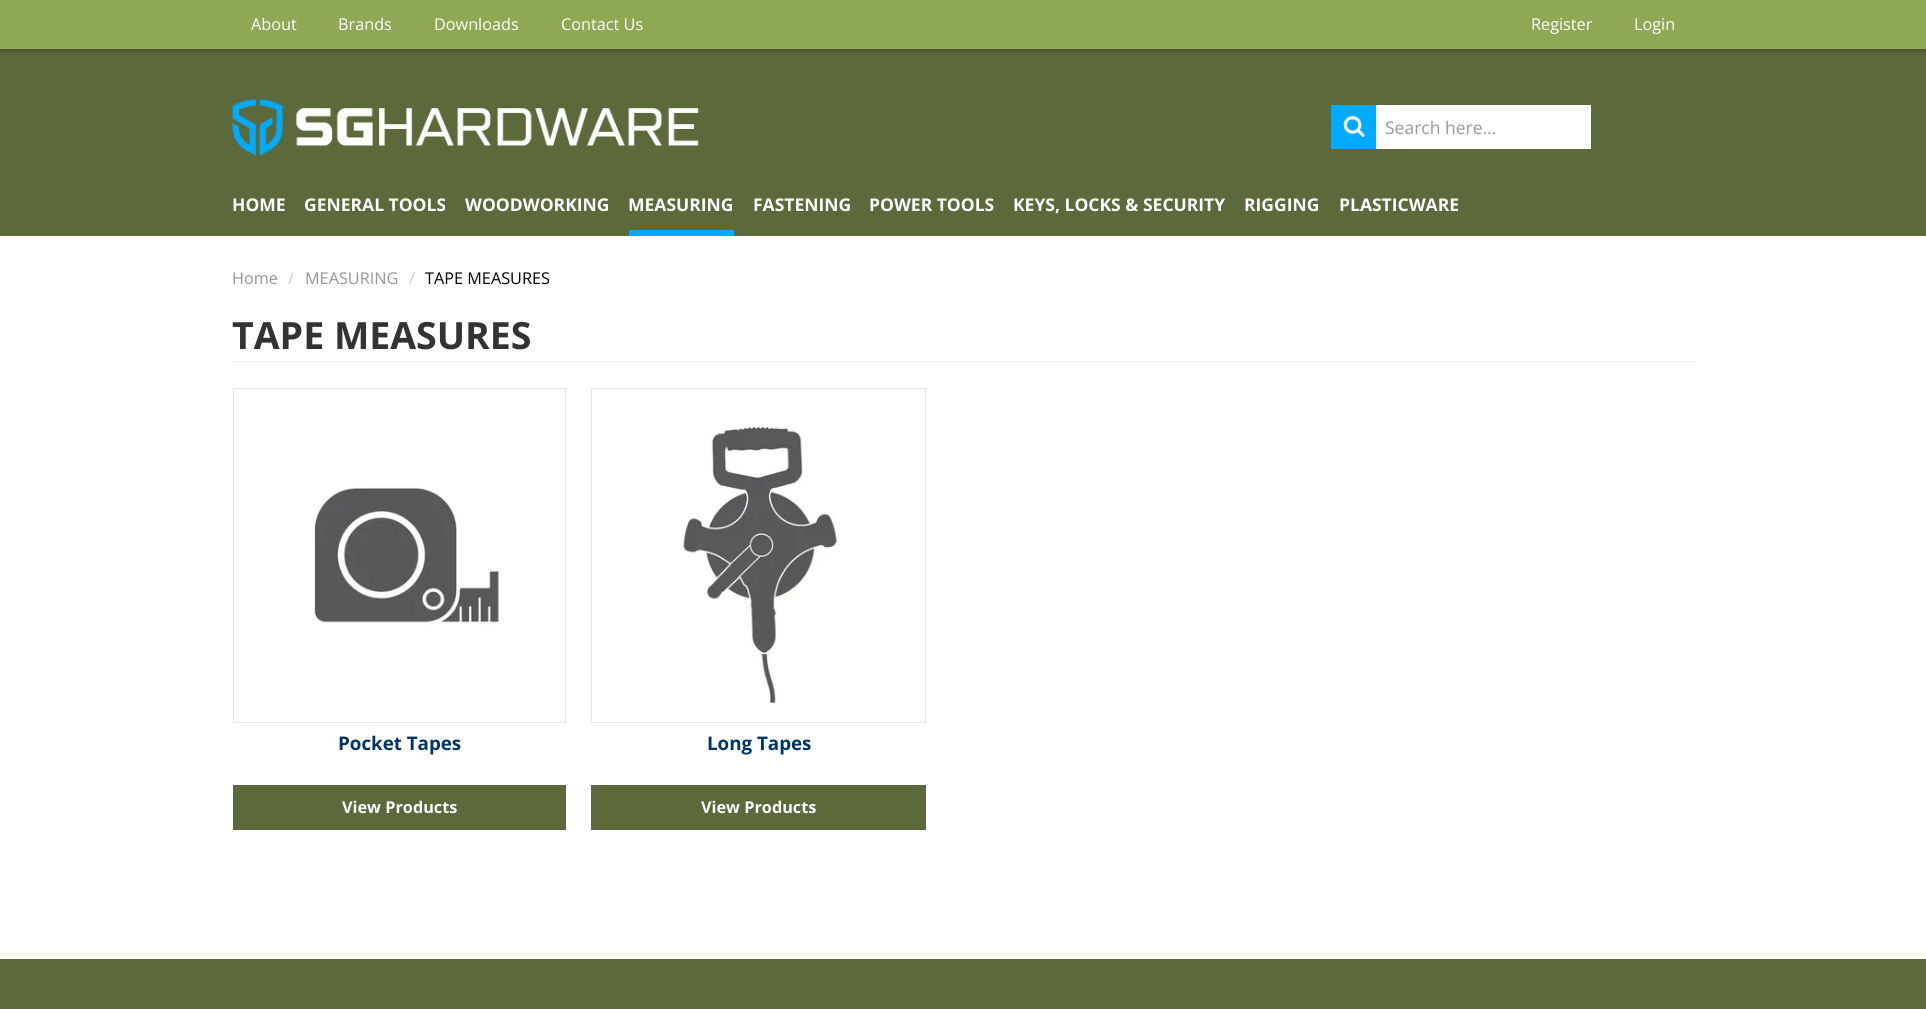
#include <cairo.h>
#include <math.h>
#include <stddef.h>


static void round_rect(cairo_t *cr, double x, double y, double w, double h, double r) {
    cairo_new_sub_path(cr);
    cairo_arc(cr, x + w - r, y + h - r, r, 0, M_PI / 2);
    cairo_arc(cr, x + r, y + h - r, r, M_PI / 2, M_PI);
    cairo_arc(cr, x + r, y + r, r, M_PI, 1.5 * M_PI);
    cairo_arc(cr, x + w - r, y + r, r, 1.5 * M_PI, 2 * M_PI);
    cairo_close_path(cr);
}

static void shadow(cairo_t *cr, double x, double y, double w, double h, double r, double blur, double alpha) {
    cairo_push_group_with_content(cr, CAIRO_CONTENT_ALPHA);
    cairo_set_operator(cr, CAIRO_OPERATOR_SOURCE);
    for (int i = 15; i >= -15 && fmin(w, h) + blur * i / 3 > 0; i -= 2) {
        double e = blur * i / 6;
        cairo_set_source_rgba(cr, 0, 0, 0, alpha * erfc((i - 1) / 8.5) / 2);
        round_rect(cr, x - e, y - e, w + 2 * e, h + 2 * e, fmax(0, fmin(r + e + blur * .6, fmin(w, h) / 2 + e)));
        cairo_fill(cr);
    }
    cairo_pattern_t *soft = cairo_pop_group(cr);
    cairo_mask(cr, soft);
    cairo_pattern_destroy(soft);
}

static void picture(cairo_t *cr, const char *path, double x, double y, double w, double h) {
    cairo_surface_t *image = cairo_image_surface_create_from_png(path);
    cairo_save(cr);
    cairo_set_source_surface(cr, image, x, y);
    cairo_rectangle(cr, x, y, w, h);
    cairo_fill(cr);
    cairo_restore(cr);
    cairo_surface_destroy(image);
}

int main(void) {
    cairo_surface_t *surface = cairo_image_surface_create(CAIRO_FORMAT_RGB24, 1926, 1009);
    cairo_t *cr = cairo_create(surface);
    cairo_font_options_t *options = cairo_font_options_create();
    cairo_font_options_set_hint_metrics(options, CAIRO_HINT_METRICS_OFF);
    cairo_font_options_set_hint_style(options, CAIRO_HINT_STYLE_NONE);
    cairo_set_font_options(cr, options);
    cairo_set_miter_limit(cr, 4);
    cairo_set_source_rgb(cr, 1, 1, 1);
    cairo_paint(cr);
    cairo_set_source_rgb(cr, 0.361, 0.412, 0.231);
    cairo_rectangle(cr, 0, 49, 1926, 187);
    cairo_fill(cr);
    cairo_set_source_rgb(cr, 0, 0, 0);
    shadow(cr, 0, 3, 1926, 48, 0, 2.5, 0.27);
    cairo_set_source_rgb(cr, 0.561, 0.659, 0.329);
    cairo_rectangle(cr, 0, 0, 1926, 49);
    cairo_fill(cr);
    cairo_select_font_face(cr, "Open Sans", CAIRO_FONT_SLANT_NORMAL, CAIRO_FONT_WEIGHT_NORMAL);
    cairo_set_font_size(cr, 16.25);
    cairo_set_source_rgb(cr, 1, 1, 1);
    cairo_move_to(cr, 251, 30);
    cairo_show_text(cr, "About");
    cairo_move_to(cr, 338, 30);
    cairo_show_text(cr, "Brands");
    cairo_move_to(cr, 434, 30);
    cairo_show_text(cr, "Downloads");
    cairo_move_to(cr, 561, 30);
    cairo_show_text(cr, "Contact Us");
    cairo_move_to(cr, 1531, 30);
    cairo_show_text(cr, "Register");
    cairo_move_to(cr, 1634, 30);
    cairo_show_text(cr, "Login");
    picture(cr, "img1.png", 232, 98, 467, 59);
    cairo_set_source_rgb(cr, 0, 0.667, 1);
    cairo_rectangle(cr, 1331, 105, 45, 44);
    cairo_fill(cr);
    picture(cr, "img2.png", 1343, 116, 22, 21);
    cairo_set_source_rgb(cr, 1, 1, 1);
    cairo_rectangle(cr, 1376, 105, 215, 44);
    cairo_fill(cr);
    cairo_set_font_size(cr, 17.5);
    cairo_set_source_rgb(cr, 0.6, 0.6, 0.6);
    cairo_move_to(cr, 1385, 134);
    cairo_show_text(cr, "Search here...");
    cairo_select_font_face(cr, "Open Sans", CAIRO_FONT_SLANT_NORMAL, CAIRO_FONT_WEIGHT_BOLD);
    cairo_set_source_rgb(cr, 1, 1, 1);
    cairo_move_to(cr, 232, 211);
    cairo_show_text(cr, "HOME");
    cairo_move_to(cr, 304, 211);
    cairo_show_text(cr, "GENERAL TOOLS");
    cairo_move_to(cr, 465, 211);
    cairo_show_text(cr, "WOODWORKING");
    cairo_set_source_rgb(cr, 0, 0.667, 1);
    cairo_rectangle(cr, 629, 230, 105, 6);
    cairo_fill(cr);
    cairo_set_source_rgb(cr, 1, 1, 1);
    cairo_move_to(cr, 628, 211);
    cairo_show_text(cr, "MEASURING");
    cairo_move_to(cr, 753, 211);
    cairo_show_text(cr, "FASTENING");
    cairo_move_to(cr, 869, 211);
    cairo_show_text(cr, "POWER TOOLS");
    cairo_move_to(cr, 1013, 211);
    cairo_show_text(cr, "KEYS, LOCKS & SECURITY");
    cairo_move_to(cr, 1244, 211);
    cairo_show_text(cr, "RIGGING");
    cairo_move_to(cr, 1339, 211);
    cairo_show_text(cr, "PLASTICWARE");
    cairo_select_font_face(cr, "Open Sans", CAIRO_FONT_SLANT_NORMAL, CAIRO_FONT_WEIGHT_NORMAL);
    cairo_set_font_size(cr, 16.25);
    cairo_set_source_rgb(cr, 0.576, 0.584, 0.596);
    cairo_move_to(cr, 232, 284);
    cairo_show_text(cr, "Home");
    cairo_set_source_rgb(cr, 0.8, 0.8, 0.8);
    cairo_move_to(cr, 288, 284);
    cairo_show_text(cr, "/");
    cairo_set_source_rgb(cr, 0.576, 0.584, 0.596);
    cairo_move_to(cr, 305, 284);
    cairo_show_text(cr, "MEASURING");
    cairo_set_source_rgb(cr, 0.8, 0.8, 0.8);
    cairo_move_to(cr, 409, 284);
    cairo_show_text(cr, "/");
    cairo_set_source_rgb(cr, 0, 0, 0);
    cairo_move_to(cr, 425, 284);
    cairo_show_text(cr, "TAPE MEASURES");
    cairo_set_source_rgb(cr, 0.941, 0.941, 0.941);
    cairo_rectangle(cr, 233, 361, 1462, 1);
    cairo_fill(cr);
    cairo_select_font_face(cr, "Open Sans", CAIRO_FONT_SLANT_NORMAL, CAIRO_FONT_WEIGHT_BOLD);
    cairo_set_font_size(cr, 37.5);
    cairo_set_source_rgb(cr, 0.2, 0.2, 0.2);
    cairo_move_to(cr, 232, 349);
    cairo_show_text(cr, "TAPE MEASURES");
    cairo_rectangle(cr, 233.5, 388.5, 332, 334);
    cairo_set_source_rgb(cr, 0.906, 0.902, 0.878);
    cairo_set_line_width(cr, 1);
    cairo_stroke(cr);
    picture(cr, "img3.png", 314, 487, 185, 138);
    cairo_set_font_size(cr, 18.75);
    cairo_set_source_rgb(cr, 0, 0.204, 0.4);
    cairo_move_to(cr, 338, 750);
    cairo_show_text(cr, "Pocket Tapes");
    cairo_set_source_rgb(cr, 0.361, 0.412, 0.231);
    cairo_rectangle(cr, 233, 785, 333, 45);
    cairo_fill(cr);
    cairo_set_font_size(cr, 16.25);
    cairo_set_source_rgb(cr, 1, 1, 1);
    cairo_move_to(cr, 342, 813);
    cairo_show_text(cr, "View Products");
    cairo_rectangle(cr, 591.5, 388.5, 334, 334);
    cairo_set_source_rgb(cr, 0.906, 0.902, 0.878);
    cairo_stroke(cr);
    picture(cr, "img4.png", 681, 426, 158, 277);
    cairo_set_font_size(cr, 18.75);
    cairo_set_source_rgb(cr, 0, 0.204, 0.4);
    cairo_move_to(cr, 707, 750);
    cairo_show_text(cr, "Long Tapes");
    cairo_set_source_rgb(cr, 0.361, 0.412, 0.231);
    cairo_rectangle(cr, 591, 785, 335, 45);
    cairo_fill(cr);
    cairo_set_font_size(cr, 16.25);
    cairo_set_source_rgb(cr, 1, 1, 1);
    cairo_move_to(cr, 701, 813);
    cairo_show_text(cr, "View Products");
    cairo_set_source_rgb(cr, 0.361, 0.412, 0.231);
    cairo_rectangle(cr, 0, 959, 1926, 50);
    cairo_fill(cr);
    cairo_surface_write_to_png(surface, "page.png");
    cairo_font_options_destroy(options);
    cairo_destroy(cr);
    cairo_surface_destroy(surface);
    return 0;
}
